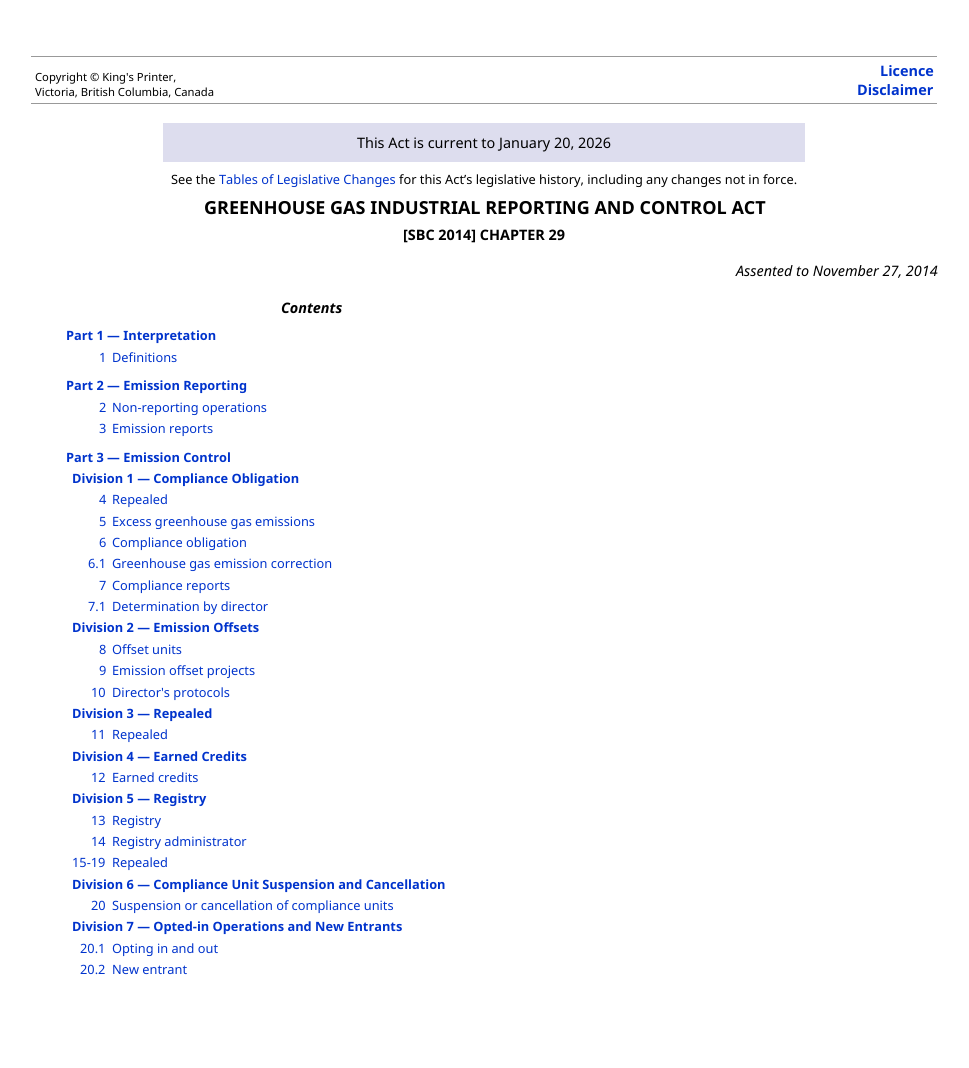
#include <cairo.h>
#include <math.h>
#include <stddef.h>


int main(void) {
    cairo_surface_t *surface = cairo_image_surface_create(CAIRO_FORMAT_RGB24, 969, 1068);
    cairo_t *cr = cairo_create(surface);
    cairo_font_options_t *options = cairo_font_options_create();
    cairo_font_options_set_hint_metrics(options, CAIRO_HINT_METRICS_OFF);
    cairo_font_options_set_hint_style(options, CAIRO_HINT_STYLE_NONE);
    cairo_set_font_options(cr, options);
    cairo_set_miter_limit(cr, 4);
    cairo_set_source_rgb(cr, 1, 1, 1);
    cairo_paint(cr);
    cairo_set_source_rgb(cr, 0.6, 0.6, 0.6);
    cairo_rectangle(cr, 31, 56, 906, 1);
    cairo_fill(cr);
    cairo_rectangle(cr, 31, 103, 906, 1);
    cairo_fill(cr);
    cairo_select_font_face(cr, "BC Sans", CAIRO_FONT_SLANT_NORMAL, CAIRO_FONT_WEIGHT_NORMAL);
    cairo_set_font_size(cr, 11.25);
    cairo_set_source_rgb(cr, 0, 0, 0);
    cairo_move_to(cr, 35, 81);
    cairo_show_text(cr, "Copyright © King's Printer,");
    cairo_move_to(cr, 35, 96);
    cairo_show_text(cr, "Victoria, British Columbia, Canada");
    cairo_select_font_face(cr, "BC Sans", CAIRO_FONT_SLANT_NORMAL, CAIRO_FONT_WEIGHT_BOLD);
    cairo_set_font_size(cr, 14.4);
    cairo_set_source_rgb(cr, 0, 0.2, 0.8);
    cairo_move_to(cr, 880, 76);
    cairo_show_text(cr, "Licence");
    cairo_move_to(cr, 857, 95);
    cairo_show_text(cr, "Disclaimer");
    cairo_set_source_rgb(cr, 0.867, 0.867, 0.933);
    cairo_rectangle(cr, 163, 123, 642, 39);
    cairo_fill(cr);
    cairo_select_font_face(cr, "BC Sans", CAIRO_FONT_SLANT_NORMAL, CAIRO_FONT_WEIGHT_NORMAL);
    cairo_set_source_rgb(cr, 0, 0, 0);
    cairo_move_to(cr, 357, 148);
    cairo_show_text(cr, "This Act is current to January 20, 2026");
    cairo_set_font_size(cr, 12.8);
    cairo_move_to(cr, 171, 184);
    cairo_show_text(cr, "See the");
    cairo_set_source_rgb(cr, 0, 0.2, 0.8);
    cairo_move_to(cr, 219, 184);
    cairo_show_text(cr, "Tables of Legislative Changes");
    cairo_set_source_rgb(cr, 0, 0, 0);
    cairo_move_to(cr, 399, 184);
    cairo_show_text(cr, "for this Act’s legislative history, including any changes not in force.");
    cairo_select_font_face(cr, "BC Sans", CAIRO_FONT_SLANT_NORMAL, CAIRO_FONT_WEIGHT_BOLD);
    cairo_set_font_size(cr, 18);
    cairo_move_to(cr, 204, 214);
    cairo_show_text(cr, "GREENHOUSE GAS INDUSTRIAL REPORTING AND CONTROL ACT");
    cairo_set_font_size(cr, 14.4);
    cairo_move_to(cr, 403, 240);
    cairo_show_text(cr, "[SBC 2014] CHAPTER 29");
    cairo_select_font_face(cr, "BC Sans", CAIRO_FONT_SLANT_ITALIC, CAIRO_FONT_WEIGHT_NORMAL);
    cairo_move_to(cr, 736, 276);
    cairo_show_text(cr, "Assented to November 27, 2014");
    cairo_select_font_face(cr, "BC Sans", CAIRO_FONT_SLANT_ITALIC, CAIRO_FONT_WEIGHT_BOLD);
    cairo_move_to(cr, 281, 313);
    cairo_show_text(cr, "Contents");
    cairo_select_font_face(cr, "BC Sans", CAIRO_FONT_SLANT_NORMAL, CAIRO_FONT_WEIGHT_BOLD);
    cairo_set_font_size(cr, 12.8);
    cairo_set_source_rgb(cr, 0, 0.2, 0.8);
    cairo_move_to(cr, 66, 340);
    cairo_show_text(cr, "Part 1 — Interpretation");
    cairo_select_font_face(cr, "BC Sans", CAIRO_FONT_SLANT_NORMAL, CAIRO_FONT_WEIGHT_NORMAL);
    cairo_move_to(cr, 99, 362);
    cairo_show_text(cr, "1");
    cairo_move_to(cr, 112, 362);
    cairo_show_text(cr, "Definitions");
    cairo_select_font_face(cr, "BC Sans", CAIRO_FONT_SLANT_NORMAL, CAIRO_FONT_WEIGHT_BOLD);
    cairo_move_to(cr, 66, 390);
    cairo_show_text(cr, "Part 2 — Emission Reporting");
    cairo_select_font_face(cr, "BC Sans", CAIRO_FONT_SLANT_NORMAL, CAIRO_FONT_WEIGHT_NORMAL);
    cairo_move_to(cr, 99, 412);
    cairo_show_text(cr, "2");
    cairo_move_to(cr, 112, 412);
    cairo_show_text(cr, "Non-reporting operations");
    cairo_move_to(cr, 99, 433);
    cairo_show_text(cr, "3");
    cairo_move_to(cr, 112, 433);
    cairo_show_text(cr, "Emission reports");
    cairo_select_font_face(cr, "BC Sans", CAIRO_FONT_SLANT_NORMAL, CAIRO_FONT_WEIGHT_BOLD);
    cairo_move_to(cr, 66, 462);
    cairo_show_text(cr, "Part 3 — Emission Control");
    cairo_move_to(cr, 72, 483);
    cairo_show_text(cr, "Division 1 — Compliance Obligation");
    cairo_select_font_face(cr, "BC Sans", CAIRO_FONT_SLANT_NORMAL, CAIRO_FONT_WEIGHT_NORMAL);
    cairo_move_to(cr, 99, 504);
    cairo_show_text(cr, "4");
    cairo_move_to(cr, 112, 504);
    cairo_show_text(cr, "Repealed");
    cairo_move_to(cr, 99, 526);
    cairo_show_text(cr, "5");
    cairo_move_to(cr, 112, 526);
    cairo_show_text(cr, "Excess greenhouse gas emissions");
    cairo_move_to(cr, 99, 547);
    cairo_show_text(cr, "6");
    cairo_move_to(cr, 112, 547);
    cairo_show_text(cr, "Compliance obligation");
    cairo_move_to(cr, 88, 568);
    cairo_show_text(cr, "6.1");
    cairo_move_to(cr, 112, 568);
    cairo_show_text(cr, "Greenhouse gas emission correction");
    cairo_move_to(cr, 99, 590);
    cairo_show_text(cr, "7");
    cairo_move_to(cr, 112, 590);
    cairo_show_text(cr, "Compliance reports");
    cairo_move_to(cr, 88, 611);
    cairo_show_text(cr, "7.1");
    cairo_move_to(cr, 112, 611);
    cairo_show_text(cr, "Determination by director");
    cairo_select_font_face(cr, "BC Sans", CAIRO_FONT_SLANT_NORMAL, CAIRO_FONT_WEIGHT_BOLD);
    cairo_move_to(cr, 72, 632);
    cairo_show_text(cr, "Division 2 — Emission Offsets");
    cairo_select_font_face(cr, "BC Sans", CAIRO_FONT_SLANT_NORMAL, CAIRO_FONT_WEIGHT_NORMAL);
    cairo_move_to(cr, 99, 654);
    cairo_show_text(cr, "8");
    cairo_move_to(cr, 112, 654);
    cairo_show_text(cr, "Offset units");
    cairo_move_to(cr, 99, 675);
    cairo_show_text(cr, "9");
    cairo_move_to(cr, 112, 675);
    cairo_show_text(cr, "Emission offset projects");
    cairo_move_to(cr, 91, 697);
    cairo_show_text(cr, "10");
    cairo_move_to(cr, 112, 697);
    cairo_show_text(cr, "Director's protocols");
    cairo_select_font_face(cr, "BC Sans", CAIRO_FONT_SLANT_NORMAL, CAIRO_FONT_WEIGHT_BOLD);
    cairo_move_to(cr, 72, 718);
    cairo_show_text(cr, "Division 3 — Repealed");
    cairo_select_font_face(cr, "BC Sans", CAIRO_FONT_SLANT_NORMAL, CAIRO_FONT_WEIGHT_NORMAL);
    cairo_move_to(cr, 91, 739);
    cairo_show_text(cr, "11");
    cairo_move_to(cr, 112, 739);
    cairo_show_text(cr, "Repealed");
    cairo_select_font_face(cr, "BC Sans", CAIRO_FONT_SLANT_NORMAL, CAIRO_FONT_WEIGHT_BOLD);
    cairo_move_to(cr, 72, 761);
    cairo_show_text(cr, "Division 4 — Earned Credits");
    cairo_select_font_face(cr, "BC Sans", CAIRO_FONT_SLANT_NORMAL, CAIRO_FONT_WEIGHT_NORMAL);
    cairo_move_to(cr, 91, 782);
    cairo_show_text(cr, "12");
    cairo_move_to(cr, 112, 782);
    cairo_show_text(cr, "Earned credits");
    cairo_select_font_face(cr, "BC Sans", CAIRO_FONT_SLANT_NORMAL, CAIRO_FONT_WEIGHT_BOLD);
    cairo_move_to(cr, 72, 803);
    cairo_show_text(cr, "Division 5 — Registry");
    cairo_select_font_face(cr, "BC Sans", CAIRO_FONT_SLANT_NORMAL, CAIRO_FONT_WEIGHT_NORMAL);
    cairo_move_to(cr, 91, 825);
    cairo_show_text(cr, "13");
    cairo_move_to(cr, 112, 825);
    cairo_show_text(cr, "Registry");
    cairo_move_to(cr, 91, 846);
    cairo_show_text(cr, "14");
    cairo_move_to(cr, 112, 846);
    cairo_show_text(cr, "Registry administrator");
    cairo_move_to(cr, 72, 867);
    cairo_show_text(cr, "15-19");
    cairo_move_to(cr, 112, 867);
    cairo_show_text(cr, "Repealed");
    cairo_select_font_face(cr, "BC Sans", CAIRO_FONT_SLANT_NORMAL, CAIRO_FONT_WEIGHT_BOLD);
    cairo_move_to(cr, 72, 889);
    cairo_show_text(cr, "Division 6 — Compliance Unit Suspension and Cancellation");
    cairo_select_font_face(cr, "BC Sans", CAIRO_FONT_SLANT_NORMAL, CAIRO_FONT_WEIGHT_NORMAL);
    cairo_move_to(cr, 91, 910);
    cairo_show_text(cr, "20");
    cairo_move_to(cr, 112, 910);
    cairo_show_text(cr, "Suspension or cancellation of compliance units");
    cairo_select_font_face(cr, "BC Sans", CAIRO_FONT_SLANT_NORMAL, CAIRO_FONT_WEIGHT_BOLD);
    cairo_move_to(cr, 72, 931);
    cairo_show_text(cr, "Division 7 — Opted-in Operations and New Entrants");
    cairo_select_font_face(cr, "BC Sans", CAIRO_FONT_SLANT_NORMAL, CAIRO_FONT_WEIGHT_NORMAL);
    cairo_move_to(cr, 80, 953);
    cairo_show_text(cr, "20.1");
    cairo_move_to(cr, 112, 953);
    cairo_show_text(cr, "Opting in and out");
    cairo_move_to(cr, 80, 974);
    cairo_show_text(cr, "20.2");
    cairo_move_to(cr, 112, 974);
    cairo_show_text(cr, "New entrant");
    cairo_surface_write_to_png(surface, "page.png");
    cairo_font_options_destroy(options);
    cairo_destroy(cr);
    cairo_surface_destroy(surface);
    return 0;
}
